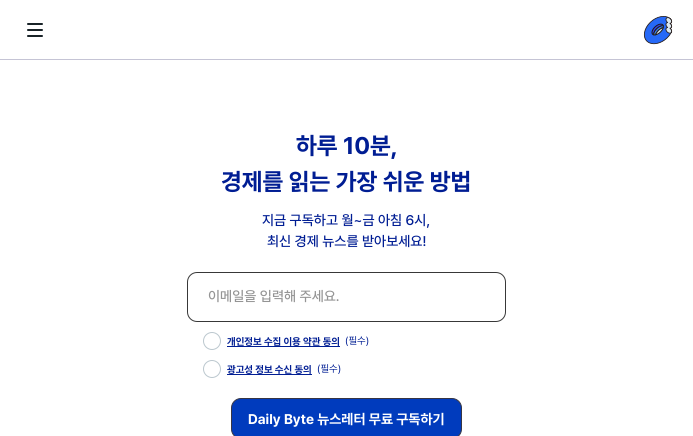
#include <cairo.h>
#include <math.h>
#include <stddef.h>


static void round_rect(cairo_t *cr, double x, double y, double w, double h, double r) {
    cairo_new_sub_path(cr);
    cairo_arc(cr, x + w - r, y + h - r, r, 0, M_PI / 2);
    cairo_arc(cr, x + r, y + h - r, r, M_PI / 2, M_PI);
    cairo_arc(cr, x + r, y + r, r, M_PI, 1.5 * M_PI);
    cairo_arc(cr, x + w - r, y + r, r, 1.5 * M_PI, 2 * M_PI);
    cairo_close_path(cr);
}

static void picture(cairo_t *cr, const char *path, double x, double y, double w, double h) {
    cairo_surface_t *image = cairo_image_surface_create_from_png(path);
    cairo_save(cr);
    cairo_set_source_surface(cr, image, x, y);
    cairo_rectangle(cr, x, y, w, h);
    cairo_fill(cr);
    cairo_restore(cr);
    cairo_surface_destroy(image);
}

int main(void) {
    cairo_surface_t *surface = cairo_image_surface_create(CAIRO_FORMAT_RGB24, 693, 436);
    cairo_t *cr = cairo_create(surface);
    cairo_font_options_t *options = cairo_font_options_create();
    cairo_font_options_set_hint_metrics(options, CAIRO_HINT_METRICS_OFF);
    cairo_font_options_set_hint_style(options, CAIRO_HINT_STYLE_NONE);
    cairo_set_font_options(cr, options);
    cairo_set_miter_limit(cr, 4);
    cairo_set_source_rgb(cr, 1, 1, 1);
    cairo_paint(cr);
    cairo_set_source_rgb(cr, 0.773, 0.769, 0.835);
    cairo_rectangle(cr, 0, 59, 693, 1);
    cairo_fill(cr);
    cairo_set_source_rgb(cr, 0.098, 0.137, 0.157);
    round_rect(cr, 27, 23, 16, 2, 1);
    cairo_fill(cr);
    round_rect(cr, 27, 29, 16, 2, 1);
    cairo_fill(cr);
    round_rect(cr, 27, 35, 16, 2, 1);
    cairo_fill(cr);
    picture(cr, "img1.png", 643, 16, 30, 29);
    cairo_select_font_face(cr, "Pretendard", CAIRO_FONT_SLANT_NORMAL, CAIRO_FONT_WEIGHT_BOLD);
    cairo_set_font_size(cr, 24);
    cairo_set_source_rgb(cr, 0, 0.114, 0.576);
    cairo_move_to(cr, 296, 154);
    cairo_show_text(cr, "하루 10분,");
    cairo_move_to(cr, 221, 190);
    cairo_show_text(cr, "경제를 읽는 가장 쉬운 방법");
    cairo_select_font_face(cr, "Pretendard Medium", CAIRO_FONT_SLANT_NORMAL, CAIRO_FONT_WEIGHT_NORMAL);
    cairo_set_font_size(cr, 14);
    cairo_move_to(cr, 262, 225);
    cairo_show_text(cr, "지금 구독하고 월~금 아침 6시,");
    cairo_move_to(cr, 267, 246);
    cairo_show_text(cr, "최신 경제 뉴스를 받아보세요!");
    round_rect(cr, 187.5, 272.5, 318, 49, 9.5);
    cairo_set_source_rgb(cr, 0.22, 0.22, 0.22);
    cairo_set_line_width(cr, 1);
    cairo_stroke(cr);
    cairo_set_source_rgb(cr, 0.58, 0.58, 0.58);
    cairo_move_to(cr, 208, 301);
    cairo_show_text(cr, "이메일을 입력해 주세요.");
    cairo_new_path(cr);
    cairo_arc(cr, 212, 341, 8.5, 0, 2 * M_PI);
    cairo_set_source_rgb(cr, 0.733, 0.78, 0.808);
    cairo_stroke(cr);
    cairo_select_font_face(cr, "Pretendard", CAIRO_FONT_SLANT_NORMAL, CAIRO_FONT_WEIGHT_BOLD);
    cairo_set_font_size(cr, 10);
    cairo_set_source_rgb(cr, 0, 0.114, 0.576);
    cairo_move_to(cr, 227, 345);
    cairo_show_text(cr, "개인정보 수집 이용 약관 동의");
    cairo_rectangle(cr, 227, 346, 113, 1);
    cairo_fill(cr);
    cairo_select_font_face(cr, "Pretendard", CAIRO_FONT_SLANT_NORMAL, CAIRO_FONT_WEIGHT_NORMAL);
    cairo_move_to(cr, 345, 344);
    cairo_show_text(cr, "(필수)");
    cairo_new_path(cr);
    cairo_arc(cr, 212, 369, 8.5, 0, 2 * M_PI);
    cairo_set_source_rgb(cr, 0.733, 0.78, 0.808);
    cairo_stroke(cr);
    cairo_select_font_face(cr, "Pretendard", CAIRO_FONT_SLANT_NORMAL, CAIRO_FONT_WEIGHT_BOLD);
    cairo_set_source_rgb(cr, 0, 0.114, 0.576);
    cairo_move_to(cr, 227, 373);
    cairo_show_text(cr, "광고성 정보 수신 동의");
    cairo_rectangle(cr, 227, 374, 85, 1);
    cairo_fill(cr);
    cairo_select_font_face(cr, "Pretendard", CAIRO_FONT_SLANT_NORMAL, CAIRO_FONT_WEIGHT_NORMAL);
    cairo_move_to(cr, 317, 372);
    cairo_show_text(cr, "(필수)");
    cairo_set_source_rgb(cr, 0, 0.231, 0.741);
    round_rect(cr, 231.5, 398.5, 230, 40, 9.5);
    cairo_fill_preserve(cr);
    cairo_set_source_rgb(cr, 0.216, 0.212, 0.267);
    cairo_stroke(cr);
    cairo_select_font_face(cr, "Pretendard", CAIRO_FONT_SLANT_NORMAL, CAIRO_FONT_WEIGHT_BOLD);
    cairo_set_font_size(cr, 14);
    cairo_set_source_rgb(cr, 1, 1, 1);
    cairo_move_to(cr, 248, 424);
    cairo_show_text(cr, "Daily Byte 뉴스레터 무료 구독하기");
    cairo_surface_write_to_png(surface, "page.png");
    cairo_font_options_destroy(options);
    cairo_destroy(cr);
    cairo_surface_destroy(surface);
    return 0;
}
